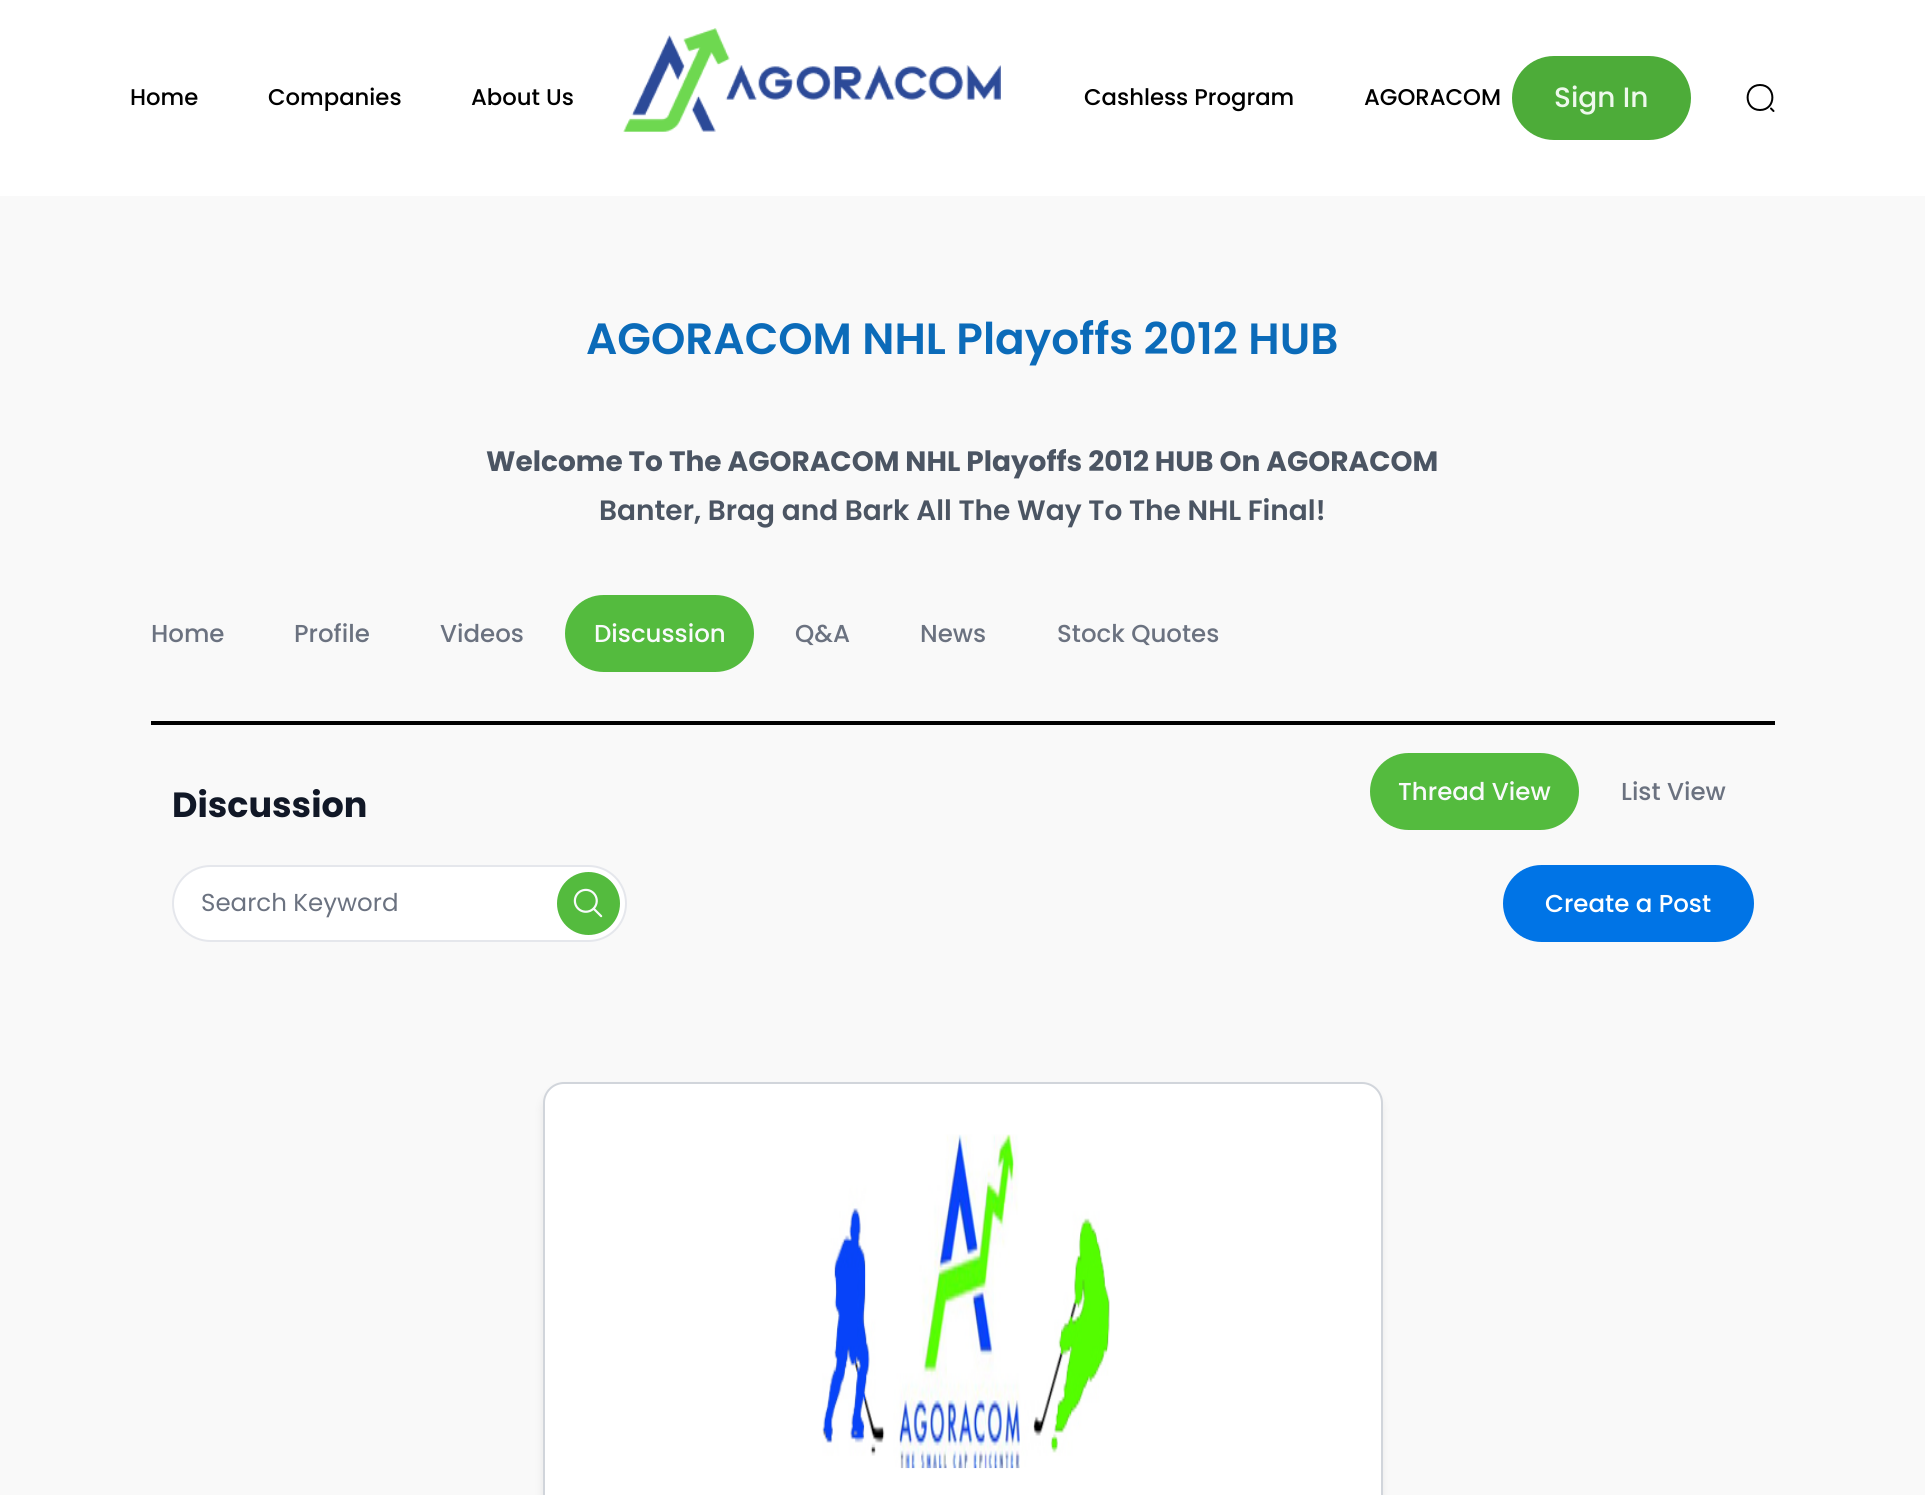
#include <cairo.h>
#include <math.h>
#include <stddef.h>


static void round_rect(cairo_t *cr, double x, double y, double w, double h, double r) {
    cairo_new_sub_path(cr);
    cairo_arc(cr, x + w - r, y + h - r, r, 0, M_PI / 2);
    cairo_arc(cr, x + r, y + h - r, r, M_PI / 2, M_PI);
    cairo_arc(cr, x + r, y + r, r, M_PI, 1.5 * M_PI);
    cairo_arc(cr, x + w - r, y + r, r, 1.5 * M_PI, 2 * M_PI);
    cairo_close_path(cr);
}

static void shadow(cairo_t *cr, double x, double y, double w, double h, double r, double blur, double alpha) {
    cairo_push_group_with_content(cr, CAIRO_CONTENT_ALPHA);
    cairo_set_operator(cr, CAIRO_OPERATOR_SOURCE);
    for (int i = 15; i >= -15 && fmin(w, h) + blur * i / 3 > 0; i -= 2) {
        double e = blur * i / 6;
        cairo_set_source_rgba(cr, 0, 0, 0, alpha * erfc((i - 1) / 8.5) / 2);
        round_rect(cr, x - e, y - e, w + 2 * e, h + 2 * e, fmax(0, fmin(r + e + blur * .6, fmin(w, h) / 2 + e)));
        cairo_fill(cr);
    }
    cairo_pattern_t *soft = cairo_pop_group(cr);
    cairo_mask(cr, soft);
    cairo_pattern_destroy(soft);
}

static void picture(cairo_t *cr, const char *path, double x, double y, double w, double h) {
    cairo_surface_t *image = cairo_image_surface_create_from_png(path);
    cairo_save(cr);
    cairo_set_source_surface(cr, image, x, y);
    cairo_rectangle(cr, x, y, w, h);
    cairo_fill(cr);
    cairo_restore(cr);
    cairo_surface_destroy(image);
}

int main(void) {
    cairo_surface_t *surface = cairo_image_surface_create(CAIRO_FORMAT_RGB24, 1925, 1495);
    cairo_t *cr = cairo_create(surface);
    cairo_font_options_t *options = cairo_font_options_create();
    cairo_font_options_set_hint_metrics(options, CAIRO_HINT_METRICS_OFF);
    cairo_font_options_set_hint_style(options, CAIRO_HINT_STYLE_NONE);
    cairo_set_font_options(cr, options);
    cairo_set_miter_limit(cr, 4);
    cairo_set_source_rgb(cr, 0.973, 0.973, 0.973);
    cairo_paint(cr);
    cairo_set_source_rgb(cr, 1, 1, 1);
    cairo_rectangle(cr, 0, 0, 1925, 196);
    cairo_fill(cr);
    cairo_select_font_face(cr, "Poppins Medium", CAIRO_FONT_SLANT_NORMAL, CAIRO_FONT_WEIGHT_NORMAL);
    cairo_set_font_size(cr, 22.75);
    cairo_set_source_rgb(cr, 0, 0, 0);
    cairo_move_to(cr, 130, 105);
    cairo_show_text(cr, "Home");
    cairo_move_to(cr, 268, 105);
    cairo_show_text(cr, "Companies");
    cairo_move_to(cr, 471, 105);
    cairo_show_text(cr, "About Us");
    picture(cr, "img1.png", 623, 28, 378, 104);
    cairo_move_to(cr, 1084, 105);
    cairo_show_text(cr, "Cashless Program");
    cairo_move_to(cr, 1364, 105);
    cairo_show_text(cr, "AGORACOM");
    cairo_set_source_rgb(cr, 0.302, 0.675, 0.224);
    round_rect(cr, 1512, 56, 179, 84, 42);
    cairo_fill(cr);
    cairo_set_font_size(cr, 28);
    cairo_set_source_rgb(cr, 0.933, 0.976, 0.925);
    cairo_move_to(cr, 1554, 107);
    cairo_show_text(cr, "Sign In");
    cairo_new_path(cr);
    cairo_move_to(cr, 1760, 110);
    cairo_curve_to(cr, 1776.5, 110, 1776.5, 85, 1760, 85);
    cairo_curve_to(cr, 1743.5, 85, 1743.5, 110, 1760, 110);
    cairo_close_path(cr);
    cairo_move_to(cr, 1773.5, 111);
    cairo_line_to(cr, 1771, 108.5);
    cairo_set_source_rgb(cr, 0, 0, 0);
    cairo_set_line_cap(cr, CAIRO_LINE_CAP_ROUND);
    cairo_set_line_join(cr, CAIRO_LINE_JOIN_ROUND);
    cairo_stroke(cr);
    cairo_select_font_face(cr, "Poppins SemiBold", CAIRO_FONT_SLANT_NORMAL, CAIRO_FONT_WEIGHT_NORMAL);
    cairo_set_font_size(cr, 43.75);
    cairo_set_source_rgb(cr, 0.043, 0.42, 0.725);
    cairo_move_to(cr, 586, 354);
    cairo_show_text(cr, "AGORACOM NHL Playoffs 2012 HUB");
    cairo_select_font_face(cr, "Poppins", CAIRO_FONT_SLANT_NORMAL, CAIRO_FONT_WEIGHT_BOLD);
    cairo_set_font_size(cr, 28);
    cairo_set_source_rgb(cr, 0.294, 0.333, 0.388);
    cairo_move_to(cr, 486, 471);
    cairo_show_text(cr, "Welcome To The AGORACOM NHL Playoffs 2012 HUB On AGORACOM");
    cairo_select_font_face(cr, "Poppins SemiBold", CAIRO_FONT_SLANT_NORMAL, CAIRO_FONT_WEIGHT_NORMAL);
    cairo_move_to(cr, 599, 520);
    cairo_show_text(cr, "Banter, Brag and Bark All The Way To The NHL Final!");
    cairo_select_font_face(cr, "Poppins Medium", CAIRO_FONT_SLANT_NORMAL, CAIRO_FONT_WEIGHT_NORMAL);
    cairo_set_font_size(cr, 24.5);
    cairo_set_source_rgb(cr, 0.42, 0.447, 0.502);
    cairo_move_to(cr, 151, 642);
    cairo_show_text(cr, "Home");
    cairo_move_to(cr, 294, 642);
    cairo_show_text(cr, "Profile");
    cairo_move_to(cr, 440, 642);
    cairo_show_text(cr, "Videos");
    cairo_set_source_rgb(cr, 0.329, 0.733, 0.243);
    round_rect(cr, 565, 595, 189, 77, 38.5);
    cairo_fill(cr);
    cairo_set_source_rgb(cr, 0.976, 0.98, 0.984);
    cairo_move_to(cr, 594, 642);
    cairo_show_text(cr, "Discussion");
    cairo_set_source_rgb(cr, 0.42, 0.447, 0.502);
    cairo_move_to(cr, 795, 642);
    cairo_show_text(cr, "Q&A");
    cairo_move_to(cr, 920, 642);
    cairo_show_text(cr, "News");
    cairo_move_to(cr, 1057, 642);
    cairo_show_text(cr, "Stock Quotes");
    cairo_set_source_rgb(cr, 0, 0, 0);
    cairo_rectangle(cr, 151, 721, 1624, 4);
    cairo_fill(cr);
    cairo_select_font_face(cr, "Poppins", CAIRO_FONT_SLANT_NORMAL, CAIRO_FONT_WEIGHT_BOLD);
    cairo_set_font_size(cr, 35);
    cairo_set_source_rgb(cr, 0.067, 0.094, 0.153);
    cairo_move_to(cr, 172, 817);
    cairo_show_text(cr, "Discussion");
    cairo_set_source_rgb(cr, 0.329, 0.733, 0.243);
    round_rect(cr, 1370, 753, 209, 77, 38.5);
    cairo_fill(cr);
    cairo_select_font_face(cr, "Poppins Medium", CAIRO_FONT_SLANT_NORMAL, CAIRO_FONT_WEIGHT_NORMAL);
    cairo_set_font_size(cr, 24.5);
    cairo_set_source_rgb(cr, 0.976, 0.98, 0.984);
    cairo_move_to(cr, 1398, 800);
    cairo_show_text(cr, "Thread View");
    cairo_set_source_rgb(cr, 0.42, 0.447, 0.502);
    cairo_move_to(cr, 1621, 800);
    cairo_show_text(cr, "List View");
    cairo_set_source_rgb(cr, 1, 1, 1);
    round_rect(cr, 173, 866, 453, 75, 37.5);
    cairo_fill_preserve(cr);
    cairo_set_source_rgb(cr, 0.898, 0.906, 0.922);
    cairo_set_line_cap(cr, CAIRO_LINE_CAP_BUTT);
    cairo_set_line_join(cr, CAIRO_LINE_JOIN_MITER);
    cairo_stroke(cr);
    cairo_select_font_face(cr, "Poppins", CAIRO_FONT_SLANT_NORMAL, CAIRO_FONT_WEIGHT_NORMAL);
    cairo_set_source_rgb(cr, 0.42, 0.447, 0.502);
    cairo_move_to(cr, 201, 911);
    cairo_show_text(cr, "Search Keyword");
    cairo_set_source_rgb(cr, 0.329, 0.733, 0.243);
    cairo_new_path(cr);
    cairo_arc(cr, 588.5, 903.5, 31.5, 0, 2 * M_PI);
    cairo_fill(cr);
    picture(cr, "img2.png", 573, 888, 30, 30);
    cairo_set_source_rgb(cr, 0, 0.455, 0.902);
    round_rect(cr, 1503, 865, 251, 77, 38.5);
    cairo_fill(cr);
    cairo_select_font_face(cr, "Poppins Medium", CAIRO_FONT_SLANT_NORMAL, CAIRO_FONT_WEIGHT_NORMAL);
    cairo_set_source_rgb(cr, 1, 1, 1);
    cairo_move_to(cr, 1545, 912);
    cairo_show_text(cr, "Create a Post");
    cairo_set_source_rgb(cr, 0, 0, 0);
    shadow(cr, 544, 1090, 837, 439, 19, 5, 0.1);
    cairo_set_source_rgb(cr, 1, 1, 1);
    round_rect(cr, 544, 1083, 838, 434, 20);
    cairo_fill_preserve(cr);
    cairo_set_source_rgb(cr, 0.82, 0.835, 0.859);
    cairo_stroke(cr);
    picture(cr, "img3.png", 822, 1134, 288, 335);
    cairo_surface_write_to_png(surface, "page.png");
    cairo_font_options_destroy(options);
    cairo_destroy(cr);
    cairo_surface_destroy(surface);
    return 0;
}
